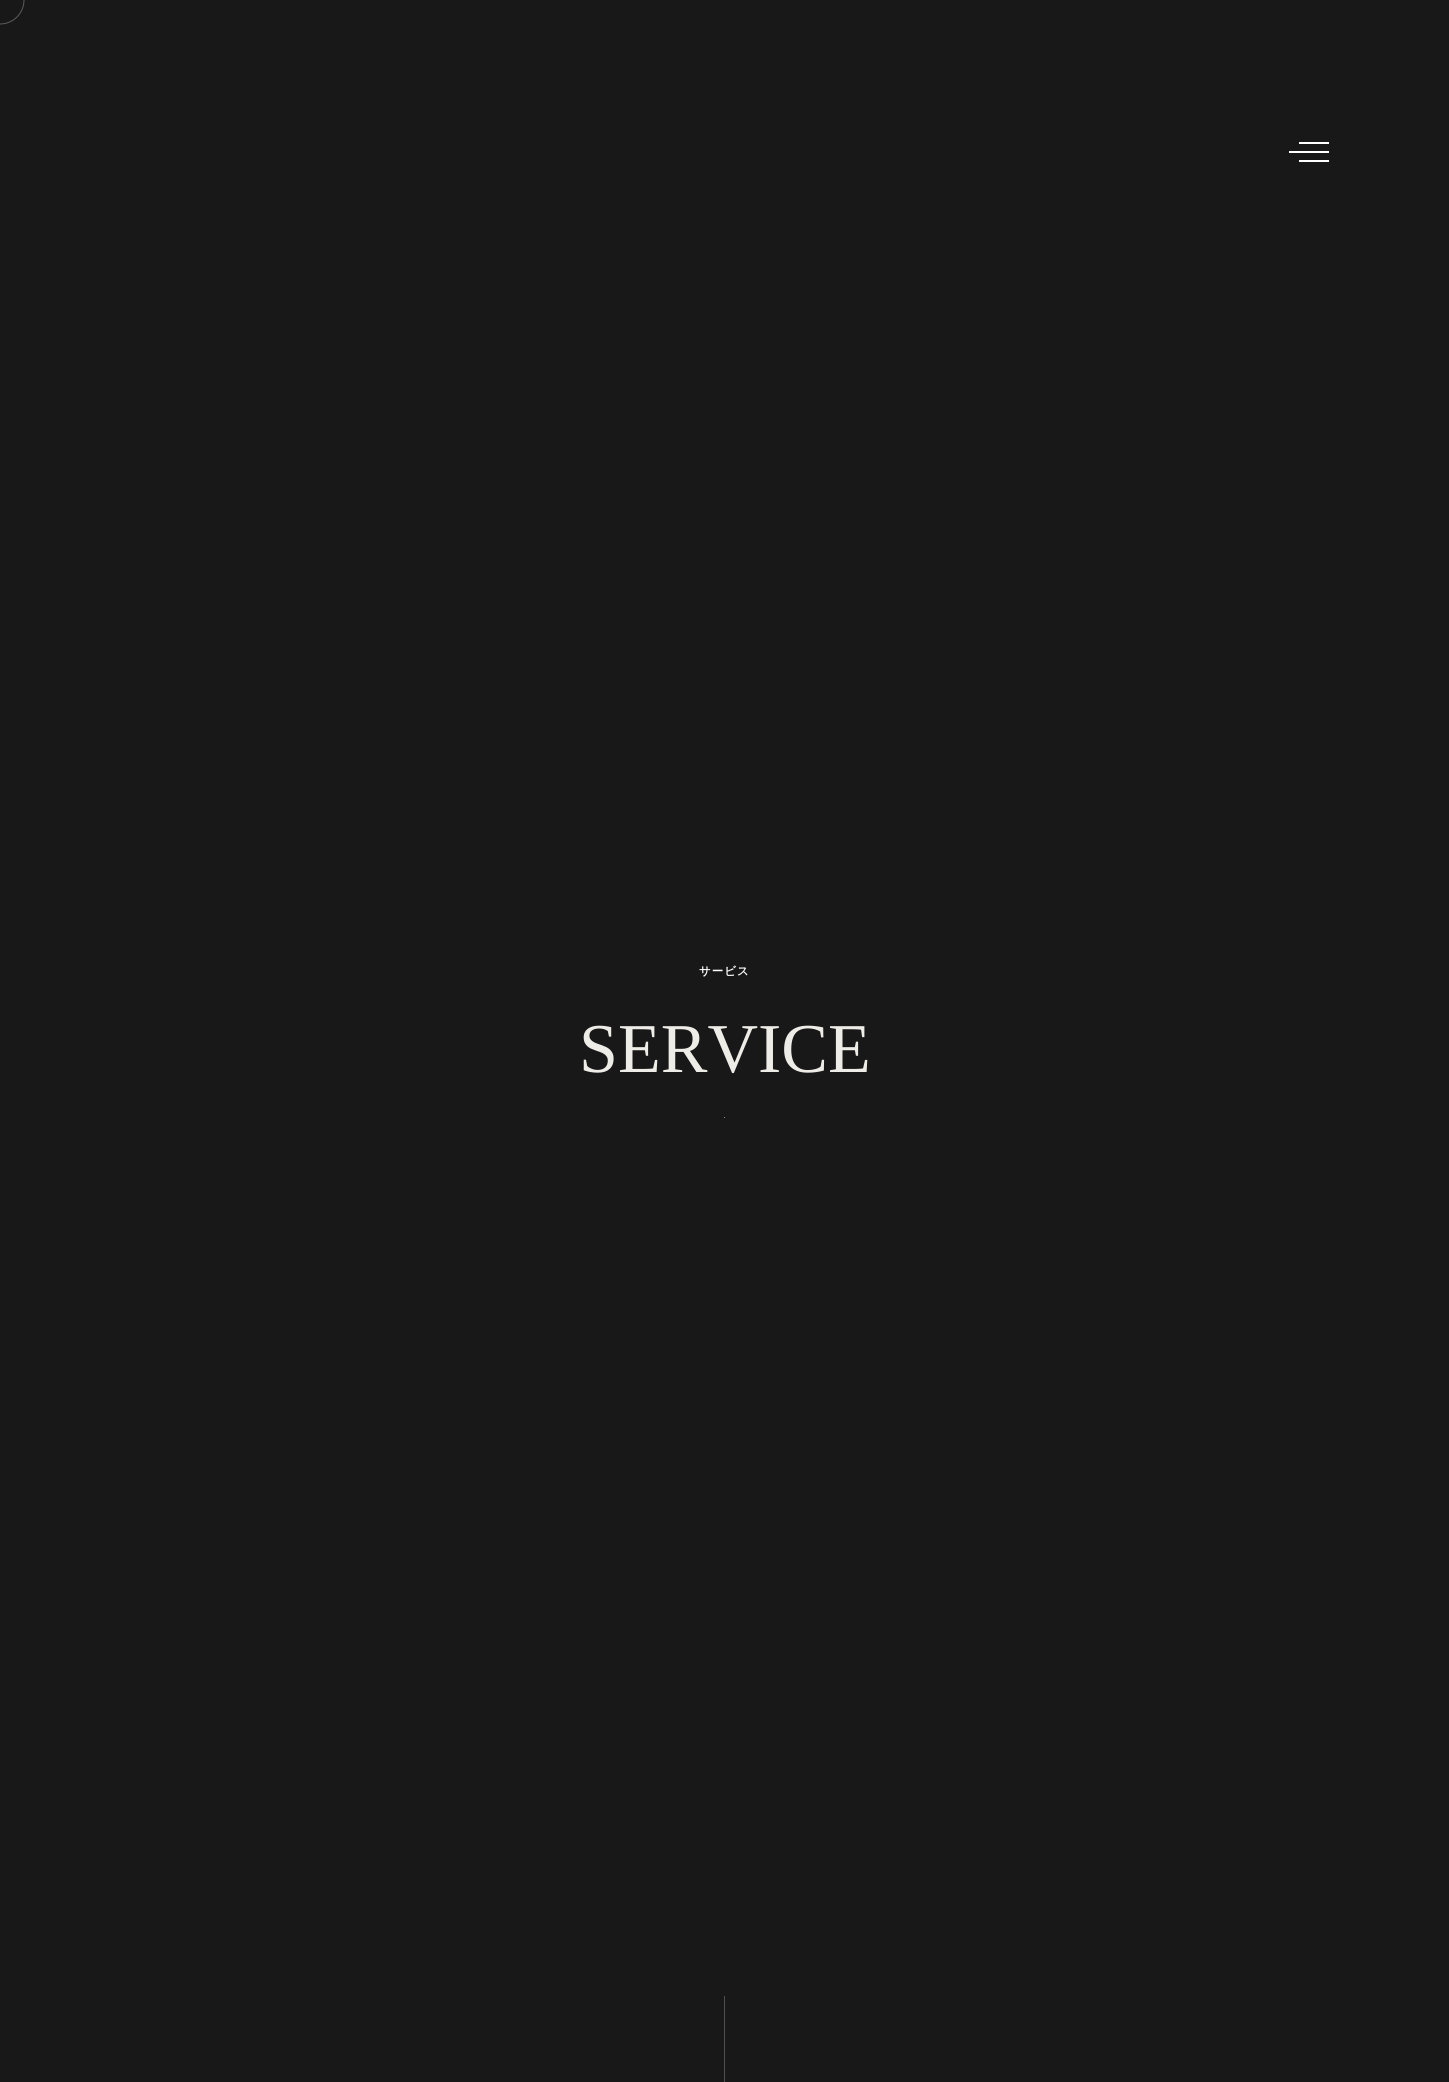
#include <cairo.h>
#include <math.h>
#include <stddef.h>


static void spaced_text(cairo_t *cr, double x, double y, const char *s, double letter, double word) {
    cairo_move_to(cr, x, y);
    while (*s) {
        char ch[5] = {0};
        int n = 0;
        do ch[n++] = *s++; while ((*s & 0xC0) == 0x80);
        cairo_show_text(cr, ch);
        cairo_rel_move_to(cr, letter + word * (*ch == ' '), 0);
    }
}

int main(void) {
    cairo_surface_t *surface = cairo_image_surface_create(CAIRO_FORMAT_RGB24, 1449, 2082);
    cairo_t *cr = cairo_create(surface);
    cairo_font_options_t *options = cairo_font_options_create();
    cairo_font_options_set_hint_metrics(options, CAIRO_HINT_METRICS_OFF);
    cairo_font_options_set_hint_style(options, CAIRO_HINT_STYLE_NONE);
    cairo_set_font_options(cr, options);
    cairo_set_miter_limit(cr, 4);
    cairo_set_source_rgb(cr, 0.094, 0.094, 0.094);
    cairo_paint(cr);
    cairo_arc(cr, 0, 0, 24, 0, 2 * M_PI);
    cairo_set_source_rgb(cr, 0.357, 0.357, 0.357);
    cairo_set_line_width(cr, 1);
    cairo_stroke(cr);
    cairo_set_source_rgb(cr, 1, 1, 1);
    cairo_rectangle(cr, 1299, 142, 30, 2);
    cairo_fill(cr);
    cairo_rectangle(cr, 1289, 151, 40, 2);
    cairo_fill(cr);
    cairo_rectangle(cr, 1299, 160, 30, 2);
    cairo_fill(cr);
    cairo_select_font_face(cr, "WenQuanYi Zen Hei", CAIRO_FONT_SLANT_NORMAL, CAIRO_FONT_WEIGHT_BOLD);
    cairo_set_font_size(cr, 11.5);
    spaced_text(cr, 699, 975, "サービス", 1, 0);
    cairo_select_font_face(cr, "Liberation Serif", CAIRO_FONT_SLANT_NORMAL, CAIRO_FONT_WEIGHT_NORMAL);
    cairo_set_font_size(cr, 70);
    cairo_set_source_rgb(cr, 0.933, 0.925, 0.902);
    cairo_move_to(cr, 579, 1072);
    cairo_show_text(cr, "SERVICE");
    cairo_set_source_rgb(cr, 0.533, 0.533, 0.533);
    cairo_rectangle(cr, 724, 1117, 1, 1);
    cairo_fill(cr);
    cairo_set_source_rgb(cr, 0.314, 0.314, 0.314);
    cairo_rectangle(cr, 724, 1996, 1, 86);
    cairo_fill(cr);
    cairo_surface_write_to_png(surface, "page.png");
    cairo_font_options_destroy(options);
    cairo_destroy(cr);
    cairo_surface_destroy(surface);
    return 0;
}
